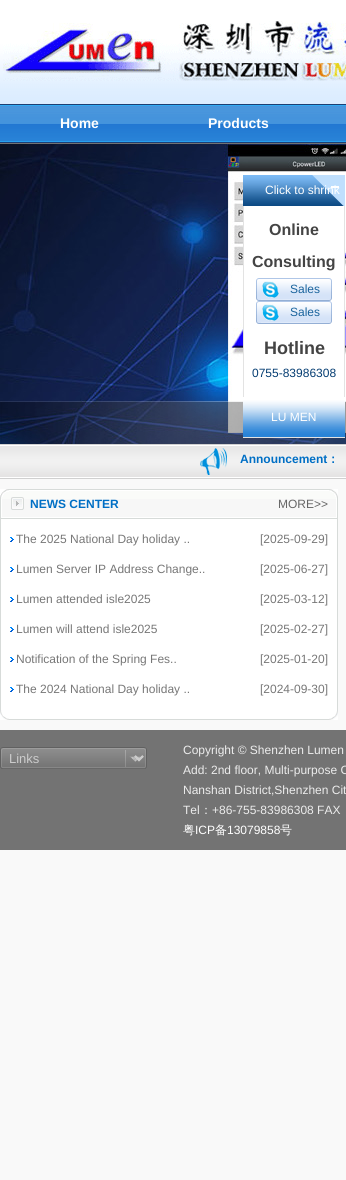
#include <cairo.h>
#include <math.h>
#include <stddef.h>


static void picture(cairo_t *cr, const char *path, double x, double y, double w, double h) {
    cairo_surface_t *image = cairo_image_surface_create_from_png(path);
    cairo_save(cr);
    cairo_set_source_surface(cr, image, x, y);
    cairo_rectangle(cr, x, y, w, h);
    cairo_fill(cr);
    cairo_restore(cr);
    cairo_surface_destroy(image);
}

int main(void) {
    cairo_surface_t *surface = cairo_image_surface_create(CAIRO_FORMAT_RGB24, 346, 1180);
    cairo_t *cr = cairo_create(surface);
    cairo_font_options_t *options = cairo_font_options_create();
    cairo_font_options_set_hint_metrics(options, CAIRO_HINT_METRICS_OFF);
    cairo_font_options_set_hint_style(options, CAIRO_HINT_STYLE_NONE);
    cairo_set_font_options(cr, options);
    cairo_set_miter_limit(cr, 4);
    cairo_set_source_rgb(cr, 0.976, 0.976, 0.976);
    cairo_paint(cr);
    picture(cr, "img1.png", 0, 0, 346, 144);
    picture(cr, "img2.png", 3, 21, 343, 60);
    cairo_select_font_face(cr, "Liberation Sans", CAIRO_FONT_SLANT_NORMAL, CAIRO_FONT_WEIGHT_BOLD);
    cairo_set_font_size(cr, 14);
    cairo_set_source_rgb(cr, 1, 1, 1);
    cairo_move_to(cr, 60, 128);
    cairo_show_text(cr, "Home");
    cairo_move_to(cr, 208, 128);
    cairo_show_text(cr, "Products");
    picture(cr, "img3.png", 0, 144, 346, 300);
    picture(cr, "img4.png", 0, 401, 346, 43);
    picture(cr, "img5.png", 243, 175, 102, 31);
    cairo_select_font_face(cr, "Liberation Sans", CAIRO_FONT_SLANT_NORMAL, CAIRO_FONT_WEIGHT_NORMAL);
    cairo_set_font_size(cr, 12);
    cairo_move_to(cr, 265, 194);
    cairo_show_text(cr, "Click to shrink");
    cairo_rectangle(cr, 244, 206, 100, 149);
    cairo_fill(cr);
    cairo_set_source_rgb(cr, 0.89, 0.89, 0.89);
    cairo_rectangle(cr, 344, 206, 1, 191);
    cairo_fill(cr);
    cairo_rectangle(cr, 243, 206, 1, 191);
    cairo_fill(cr);
    cairo_select_font_face(cr, "Liberation Sans", CAIRO_FONT_SLANT_NORMAL, CAIRO_FONT_WEIGHT_BOLD);
    cairo_set_font_size(cr, 16);
    cairo_set_source_rgb(cr, 0.267, 0.267, 0.267);
    cairo_move_to(cr, 269, 235);
    cairo_show_text(cr, "Online");
    cairo_move_to(cr, 252, 267);
    cairo_show_text(cr, "Consulting");
    picture(cr, "img6.png", 256, 278, 76, 23);
    cairo_select_font_face(cr, "Liberation Sans", CAIRO_FONT_SLANT_NORMAL, CAIRO_FONT_WEIGHT_NORMAL);
    cairo_set_font_size(cr, 12);
    cairo_set_source_rgb(cr, 0.102, 0.392, 0.616);
    cairo_move_to(cr, 290, 293);
    cairo_show_text(cr, "Sales");
    picture(cr, "img6.png", 256, 301, 76, 23);
    cairo_move_to(cr, 290, 316);
    cairo_show_text(cr, "Sales");
    cairo_select_font_face(cr, "Liberation Sans", CAIRO_FONT_SLANT_NORMAL, CAIRO_FONT_WEIGHT_BOLD);
    cairo_set_font_size(cr, 18);
    cairo_set_source_rgb(cr, 0.267, 0.267, 0.267);
    cairo_move_to(cr, 264, 354);
    cairo_show_text(cr, "Hotline");
    cairo_select_font_face(cr, "Liberation Sans", CAIRO_FONT_SLANT_NORMAL, CAIRO_FONT_WEIGHT_NORMAL);
    cairo_set_font_size(cr, 12);
    cairo_set_source_rgb(cr, 0.02, 0.239, 0.447);
    cairo_move_to(cr, 252, 377);
    cairo_show_text(cr, "0755-83986308");
    picture(cr, "img7.png", 243, 397, 102, 40);
    cairo_set_source_rgb(cr, 0.89, 0.89, 0.89);
    cairo_rectangle(cr, 243, 437, 102, 1);
    cairo_fill(cr);
    cairo_set_source_rgb(cr, 1, 1, 1);
    cairo_move_to(cr, 271, 421);
    cairo_show_text(cr, "LU MEN");
    picture(cr, "img8.png", 0, 444, 346, 35);
    picture(cr, "img9.png", 200, 448, 27, 27);
    cairo_select_font_face(cr, "Liberation Sans", CAIRO_FONT_SLANT_NORMAL, CAIRO_FONT_WEIGHT_BOLD);
    cairo_set_source_rgb(cr, 0, 0.435, 0.773);
    cairo_move_to(cr, 240, 463);
    cairo_show_text(cr, "Announcement");
    cairo_select_font_face(cr, "WenQuanYi Zen Hei", CAIRO_FONT_SLANT_NORMAL, CAIRO_FONT_WEIGHT_BOLD);
    cairo_move_to(cr, 327, 463);
    cairo_show_text(cr, "：");
    picture(cr, "img10.png", 0, 489, 338, 231);
    cairo_select_font_face(cr, "Liberation Sans", CAIRO_FONT_SLANT_NORMAL, CAIRO_FONT_WEIGHT_BOLD);
    cairo_move_to(cr, 30, 508);
    cairo_show_text(cr, "NEWS CENTER");
    cairo_select_font_face(cr, "Liberation Sans", CAIRO_FONT_SLANT_NORMAL, CAIRO_FONT_WEIGHT_NORMAL);
    cairo_set_source_rgb(cr, 0.4, 0.4, 0.4);
    cairo_move_to(cr, 278, 508);
    cairo_show_text(cr, "MORE>>");
    picture(cr, "img11.png", 10, 537, 4, 5);
    cairo_set_source_rgb(cr, 0.467, 0.467, 0.467);
    cairo_move_to(cr, 16, 543);
    cairo_show_text(cr, "The 2025 National Day holiday ..");
    cairo_move_to(cr, 260, 543);
    cairo_show_text(cr, "[2025-09-29]");
    picture(cr, "img11.png", 10, 567, 4, 5);
    cairo_move_to(cr, 16, 573);
    cairo_show_text(cr, "Lumen Server IP Address Change..");
    cairo_move_to(cr, 260, 573);
    cairo_show_text(cr, "[2025-06-27]");
    picture(cr, "img11.png", 10, 597, 4, 5);
    cairo_move_to(cr, 16, 603);
    cairo_show_text(cr, "Lumen attended isle2025");
    cairo_move_to(cr, 260, 603);
    cairo_show_text(cr, "[2025-03-12]");
    picture(cr, "img11.png", 10, 627, 4, 5);
    cairo_move_to(cr, 16, 633);
    cairo_show_text(cr, "Lumen will attend isle2025");
    cairo_move_to(cr, 260, 633);
    cairo_show_text(cr, "[2025-02-27]");
    picture(cr, "img11.png", 10, 657, 4, 5);
    cairo_move_to(cr, 16, 663);
    cairo_show_text(cr, "Notification of the Spring Fes..");
    cairo_move_to(cr, 260, 663);
    cairo_show_text(cr, "[2025-01-20]");
    picture(cr, "img11.png", 10, 687, 4, 5);
    cairo_move_to(cr, 16, 693);
    cairo_show_text(cr, "The 2024 National Day holiday ..");
    cairo_move_to(cr, 260, 693);
    cairo_show_text(cr, "[2024-09-30]");
    cairo_set_source_rgb(cr, 0.451, 0.451, 0.451);
    cairo_rectangle(cr, 0, 730, 346, 120);
    cairo_fill(cr);
    picture(cr, "img12.png", 0, 747, 147, 22);
    cairo_new_path(cr);
    cairo_move_to(cr, 135, 756);
    cairo_line_to(cr, 139, 760);
    cairo_line_to(cr, 143, 756);
    cairo_set_source_rgb(cr, 0.8, 0.8, 0.8);
    cairo_stroke(cr);
    cairo_set_font_size(cr, 13);
    cairo_move_to(cr, 9, 763);
    cairo_show_text(cr, "Links");
    cairo_set_font_size(cr, 12);
    cairo_set_source_rgb(cr, 0.922, 0.922, 0.922);
    cairo_move_to(cr, 183, 754);
    cairo_show_text(cr, "Copyright © Shenzhen Lumen");
    cairo_move_to(cr, 183, 774);
    cairo_show_text(cr, "Add: 2nd floor, Multi-purpose C");
    cairo_move_to(cr, 183, 794);
    cairo_show_text(cr, "Nanshan District,Shenzhen Cit");
    cairo_move_to(cr, 183, 814);
    cairo_show_text(cr, "Tel");
    cairo_select_font_face(cr, "WenQuanYi Zen Hei Medium", CAIRO_FONT_SLANT_NORMAL, CAIRO_FONT_WEIGHT_NORMAL);
    cairo_move_to(cr, 200, 814);
    cairo_show_text(cr, "：");
    cairo_select_font_face(cr, "Liberation Sans", CAIRO_FONT_SLANT_NORMAL, CAIRO_FONT_WEIGHT_NORMAL);
    cairo_move_to(cr, 212, 814);
    cairo_show_text(cr, "+86-755-83986308 FAX");
    cairo_select_font_face(cr, "WenQuanYi Zen Hei Medium", CAIRO_FONT_SLANT_NORMAL, CAIRO_FONT_WEIGHT_NORMAL);
    cairo_set_source_rgb(cr, 1, 1, 1);
    cairo_move_to(cr, 183, 834);
    cairo_show_text(cr, "粤");
    cairo_select_font_face(cr, "Liberation Sans", CAIRO_FONT_SLANT_NORMAL, CAIRO_FONT_WEIGHT_NORMAL);
    cairo_move_to(cr, 195, 834);
    cairo_show_text(cr, "ICP");
    cairo_select_font_face(cr, "WenQuanYi Zen Hei Medium", CAIRO_FONT_SLANT_NORMAL, CAIRO_FONT_WEIGHT_NORMAL);
    cairo_move_to(cr, 215, 834);
    cairo_show_text(cr, "备");
    cairo_select_font_face(cr, "Liberation Sans", CAIRO_FONT_SLANT_NORMAL, CAIRO_FONT_WEIGHT_NORMAL);
    cairo_move_to(cr, 227, 834);
    cairo_show_text(cr, "13079858");
    cairo_select_font_face(cr, "WenQuanYi Zen Hei Medium", CAIRO_FONT_SLANT_NORMAL, CAIRO_FONT_WEIGHT_NORMAL);
    cairo_move_to(cr, 280, 834);
    cairo_show_text(cr, "号");
    cairo_surface_write_to_png(surface, "page.png");
    cairo_font_options_destroy(options);
    cairo_destroy(cr);
    cairo_surface_destroy(surface);
    return 0;
}
